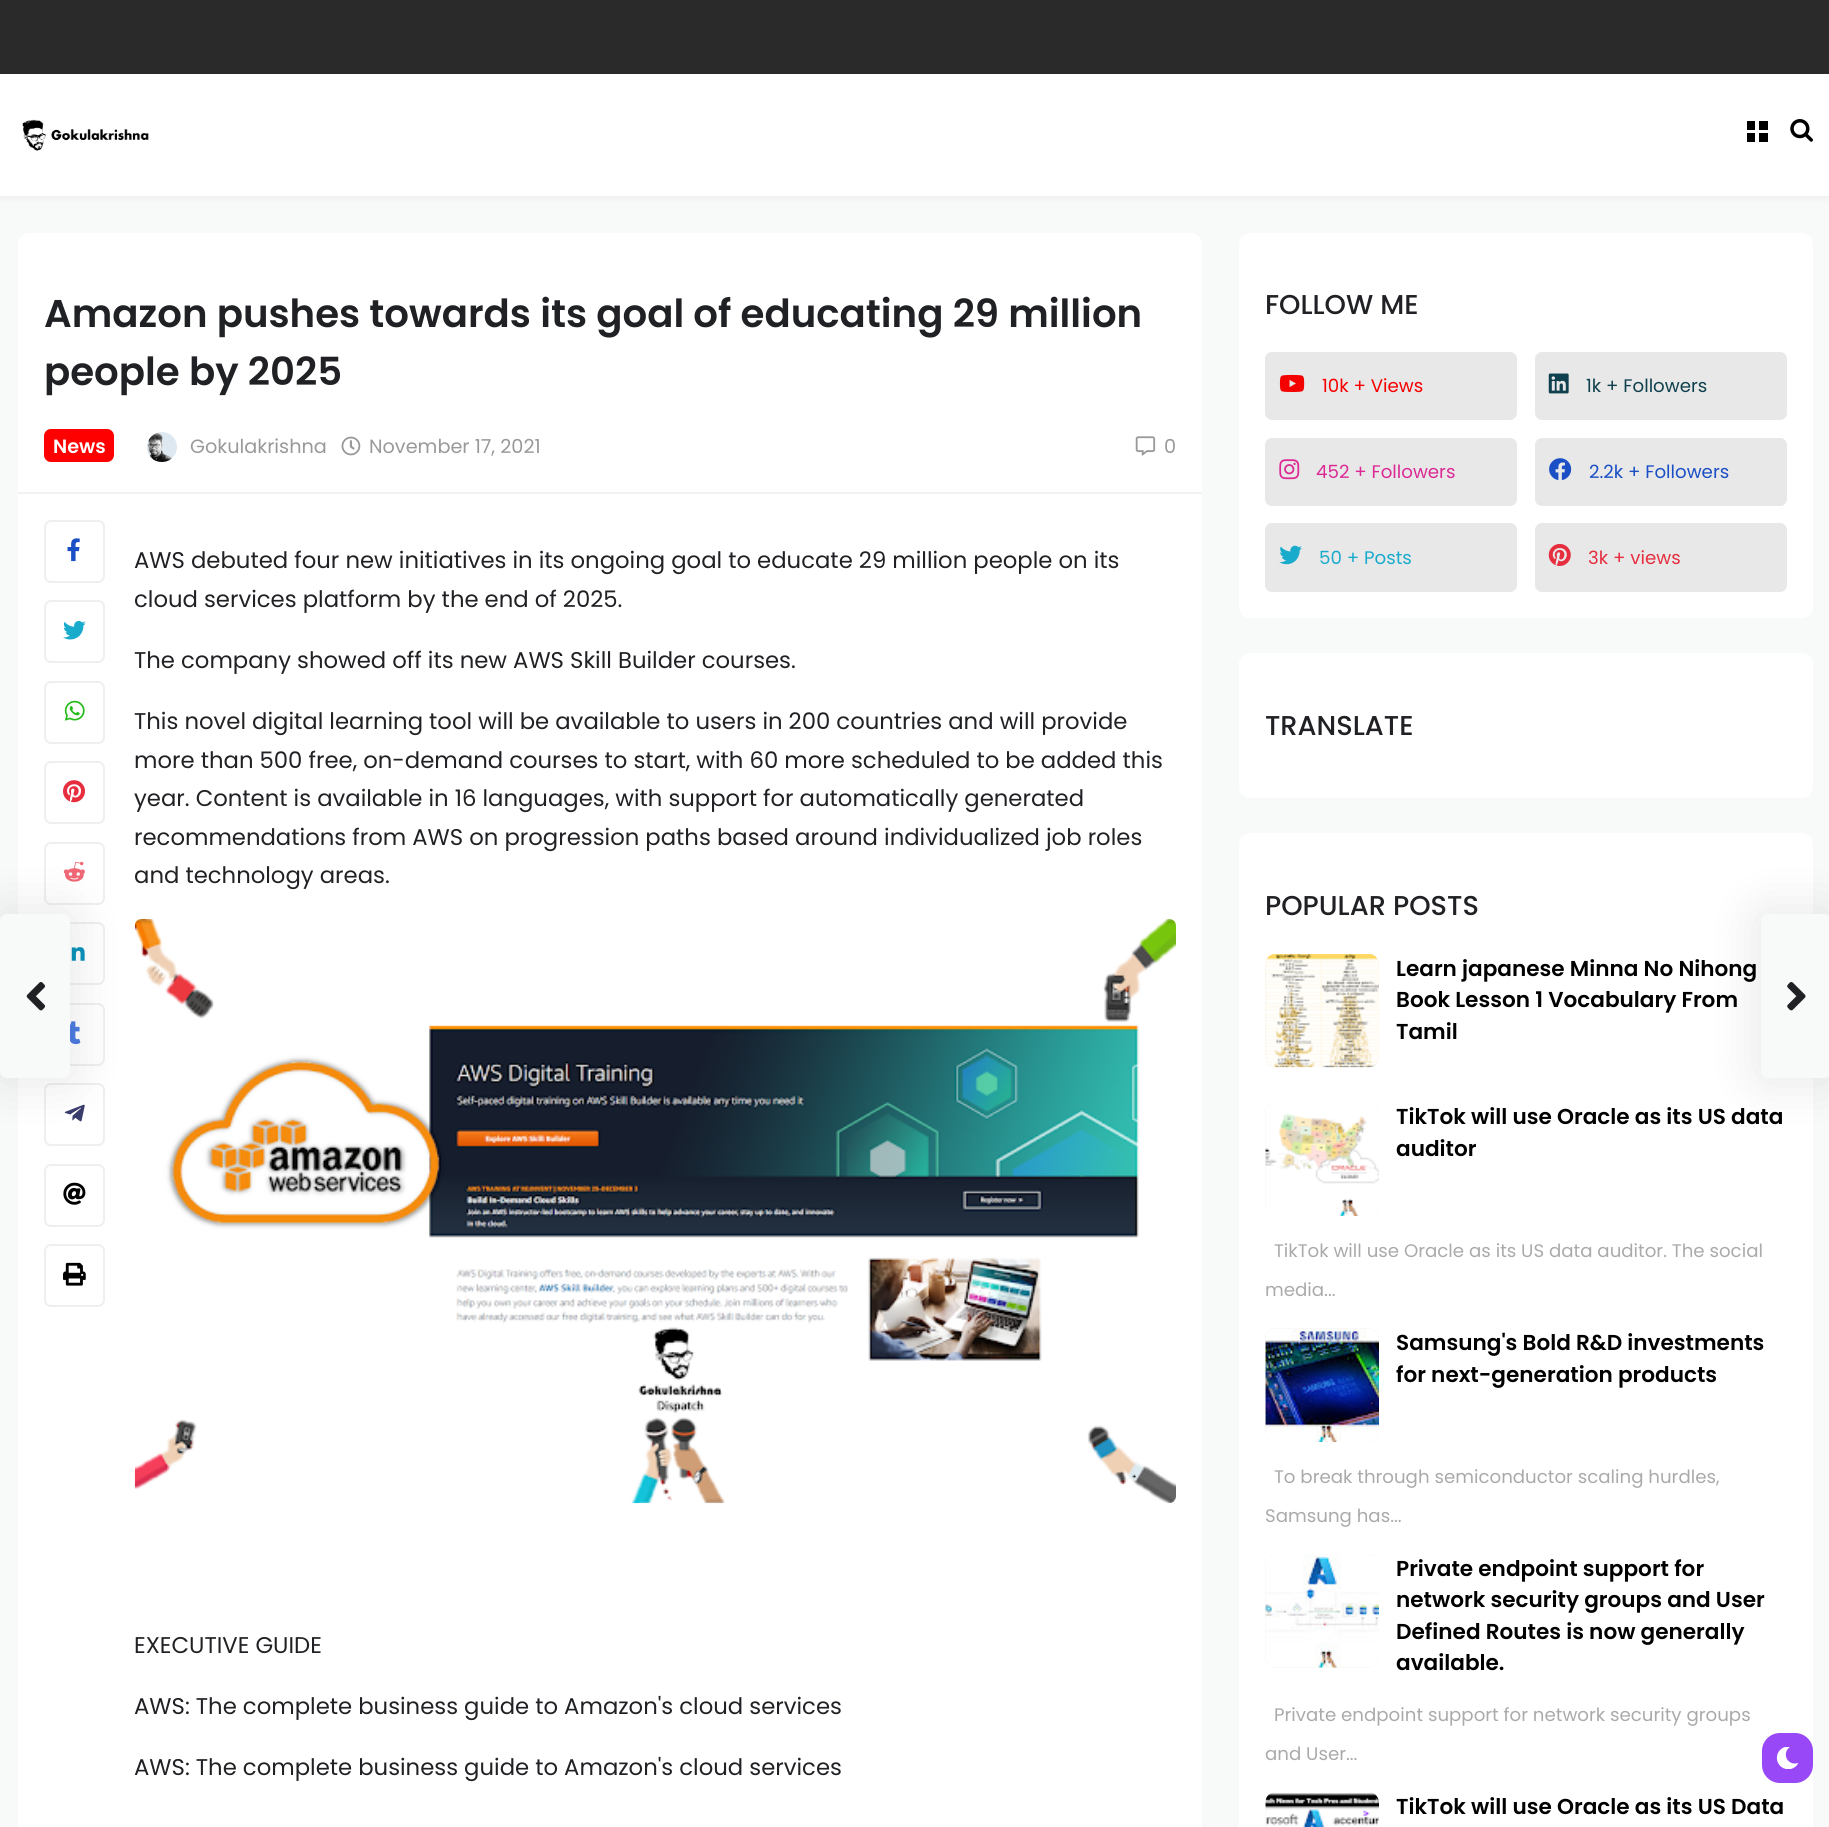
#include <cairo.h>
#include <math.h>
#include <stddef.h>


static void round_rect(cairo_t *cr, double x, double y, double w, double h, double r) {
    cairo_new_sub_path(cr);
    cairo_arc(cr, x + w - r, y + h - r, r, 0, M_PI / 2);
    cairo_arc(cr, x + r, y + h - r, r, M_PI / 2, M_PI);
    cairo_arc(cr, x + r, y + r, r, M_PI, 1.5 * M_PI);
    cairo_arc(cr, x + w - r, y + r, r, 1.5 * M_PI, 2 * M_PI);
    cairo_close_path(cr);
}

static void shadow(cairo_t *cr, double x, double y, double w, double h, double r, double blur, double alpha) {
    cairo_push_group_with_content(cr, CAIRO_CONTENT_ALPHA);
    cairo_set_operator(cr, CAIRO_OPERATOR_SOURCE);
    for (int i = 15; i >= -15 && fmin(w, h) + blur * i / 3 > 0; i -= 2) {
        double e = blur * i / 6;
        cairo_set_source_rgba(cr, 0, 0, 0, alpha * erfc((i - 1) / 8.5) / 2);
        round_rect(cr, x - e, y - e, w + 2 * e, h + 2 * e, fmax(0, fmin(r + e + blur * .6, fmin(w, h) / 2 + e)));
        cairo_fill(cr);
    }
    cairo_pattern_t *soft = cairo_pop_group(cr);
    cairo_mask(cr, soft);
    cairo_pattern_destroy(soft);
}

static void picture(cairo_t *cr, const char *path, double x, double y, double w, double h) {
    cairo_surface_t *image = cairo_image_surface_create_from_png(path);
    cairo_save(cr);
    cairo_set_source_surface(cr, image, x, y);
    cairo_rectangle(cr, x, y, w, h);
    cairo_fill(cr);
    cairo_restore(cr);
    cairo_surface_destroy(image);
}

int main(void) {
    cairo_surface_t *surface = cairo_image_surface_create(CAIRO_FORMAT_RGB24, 1829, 1827);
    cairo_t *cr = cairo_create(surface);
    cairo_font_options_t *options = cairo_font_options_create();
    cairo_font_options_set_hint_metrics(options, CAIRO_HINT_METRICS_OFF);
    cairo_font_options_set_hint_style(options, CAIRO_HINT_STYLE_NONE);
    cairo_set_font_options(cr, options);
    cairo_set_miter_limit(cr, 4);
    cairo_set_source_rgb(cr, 0.969, 0.973, 0.976);
    cairo_paint(cr);
    cairo_set_source_rgb(cr, 0, 0, 0);
    shadow(cr, 2, 4, 1827, 194, 0, 3.5, 0.05);
    cairo_set_source_rgb(cr, 1, 1, 1);
    cairo_rectangle(cr, 0, 74, 1829, 122);
    cairo_fill(cr);
    cairo_set_source_rgb(cr, 0.949, 0.949, 0.949);
    cairo_rectangle(cr, 0, 196, 1829, 2);
    cairo_fill(cr);
    cairo_set_source_rgb(cr, 0.165, 0.165, 0.165);
    cairo_rectangle(cr, 0, 0, 1829, 74);
    cairo_fill(cr);
    picture(cr, "img1.png", 22, 119, 127, 32);
    picture(cr, "img2.png", 1747, 121, 21, 21);
    picture(cr, "img3.png", 1790, 119, 23, 23);
    cairo_set_source_rgb(cr, 1, 1, 1);
    cairo_new_path(cr);
    cairo_move_to(cr, 29, 233);
    cairo_line_to(cr, 1191, 233);
    cairo_curve_to(cr, 1197, 233, 1202, 238, 1202, 244);
    cairo_line_to(cr, 1202, 494);
    cairo_line_to(cr, 18, 494);
    cairo_line_to(cr, 18, 244);
    cairo_curve_to(cr, 18, 238, 23, 233, 29, 233);
    cairo_close_path(cr);
    cairo_fill(cr);
    cairo_set_source_rgb(cr, 0.949, 0.949, 0.949);
    cairo_rectangle(cr, 18, 492, 1184, 2);
    cairo_fill(cr);
    cairo_select_font_face(cr, "Poppins SemiBold", CAIRO_FONT_SLANT_NORMAL, CAIRO_FONT_WEIGHT_NORMAL);
    cairo_set_font_size(cr, 38.7);
    cairo_set_source_rgb(cr, 0.125, 0.129, 0.141);
    cairo_move_to(cr, 44, 327);
    cairo_show_text(cr, "Amazon pushes towards its goal of educating 29 million");
    cairo_move_to(cr, 44, 385);
    cairo_show_text(cr, "people by 2025");
    cairo_set_source_rgb(cr, 1, 0, 0);
    round_rect(cr, 44, 429, 70, 33, 7);
    cairo_fill(cr);
    cairo_set_font_size(cr, 19.25);
    cairo_set_source_rgb(cr, 1, 1, 1);
    cairo_move_to(cr, 53, 453);
    cairo_show_text(cr, "News");
    cairo_set_source_rgb(cr, 0.867, 0.91, 0.941);
    cairo_new_path(cr);
    cairo_arc(cr, 162, 447, 15, 0, 2 * M_PI);
    cairo_fill(cr);
    picture(cr, "img4.png", 147, 433, 25, 29);
    cairo_select_font_face(cr, "Poppins", CAIRO_FONT_SLANT_NORMAL, CAIRO_FONT_WEIGHT_NORMAL);
    cairo_set_source_rgb(cr, 0.6, 0.6, 0.6);
    cairo_move_to(cr, 190, 453);
    cairo_show_text(cr, "Gokulakrishna");
    picture(cr, "img5.png", 341, 436, 20, 20);
    cairo_move_to(cr, 369, 453);
    cairo_show_text(cr, "November 17, 2021");
    picture(cr, "img6.png", 1135, 436, 21, 20);
    cairo_move_to(cr, 1164, 453);
    cairo_show_text(cr, "0");
    cairo_set_source_rgb(cr, 1, 1, 1);
    cairo_rectangle(cr, 18, 494, 1184, 1333);
    cairo_fill(cr);
    round_rect(cr, 45, 521, 59, 61, 6);
    cairo_set_source_rgb(cr, 0.937, 0.937, 0.937);
    cairo_stroke(cr);
    picture(cr, "img7.png", 67, 538, 13, 24);
    round_rect(cr, 45, 601, 59, 61, 6);
    cairo_stroke(cr);
    picture(cr, "img8.png", 63, 621, 23, 19);
    round_rect(cr, 45, 682, 59, 61, 6);
    cairo_stroke(cr);
    picture(cr, "img9.png", 64, 700, 21, 21);
    round_rect(cr, 45, 762, 59, 61, 6);
    cairo_stroke(cr);
    picture(cr, "img10.png", 63, 780, 22, 23);
    round_rect(cr, 45, 843, 59, 61, 6);
    cairo_stroke(cr);
    picture(cr, "img11.png", 63, 861, 22, 21);
    round_rect(cr, 45, 923, 59, 61, 6);
    cairo_stroke(cr);
    picture(cr, "img12.png", 71, 947, 14, 14);
    round_rect(cr, 45, 1004, 59, 61, 6);
    cairo_stroke(cr);
    picture(cr, "img13.png", 70, 1021, 11, 24);
    round_rect(cr, 45, 1084, 59, 61, 6);
    cairo_stroke(cr);
    picture(cr, "img14.png", 64, 1104, 21, 18);
    round_rect(cr, 45, 1165, 59, 61, 6);
    cairo_stroke(cr);
    picture(cr, "img15.png", 63, 1182, 23, 23);
    round_rect(cr, 45, 1245, 59, 61, 6);
    cairo_stroke(cr);
    picture(cr, "img16.png", 63, 1262, 23, 24);
    cairo_set_font_size(cr, 22.75);
    cairo_set_source_rgb(cr, 0.125, 0.129, 0.141);
    cairo_move_to(cr, 134, 568);
    cairo_show_text(cr, "AWS debuted four new initiatives in its ongoing goal to educate 29 million people on its");
    cairo_move_to(cr, 134, 607);
    cairo_show_text(cr, "cloud services platform by the end of 2025.");
    cairo_move_to(cr, 134, 668);
    cairo_show_text(cr, "The company showed off its new AWS Skill Builder courses.");
    cairo_move_to(cr, 134, 729);
    cairo_show_text(cr, "This novel digital learning tool will be available to users in 200 countries and will provide");
    cairo_move_to(cr, 134, 768);
    cairo_show_text(cr, "more than 500 free, on-demand courses to start, with 60 more scheduled to be added this");
    cairo_move_to(cr, 134, 806);
    cairo_show_text(cr, "year. Content is available in 16 languages, with support for automatically generated");
    cairo_move_to(cr, 134, 845);
    cairo_show_text(cr, "recommendations from AWS on progression paths based around individualized job roles");
    cairo_move_to(cr, 134, 883);
    cairo_show_text(cr, "and technology areas.");
    picture(cr, "img17.png", 134, 918, 1042, 586);
    cairo_move_to(cr, 134, 1653);
    cairo_show_text(cr, "EXECUTIVE GUIDE");
    cairo_move_to(cr, 134, 1714);
    cairo_show_text(cr, "AWS: The complete business guide to Amazon's cloud services");
    cairo_move_to(cr, 134, 1775);
    cairo_show_text(cr, "AWS: The complete business guide to Amazon's cloud services");
    cairo_set_source_rgb(cr, 1, 1, 1);
    round_rect(cr, 1239, 233, 574, 385, 11);
    cairo_fill(cr);
    cairo_select_font_face(cr, "Poppins Medium", CAIRO_FONT_SLANT_NORMAL, CAIRO_FONT_WEIGHT_NORMAL);
    cairo_set_font_size(cr, 27.25);
    cairo_set_source_rgb(cr, 0.125, 0.129, 0.141);
    cairo_move_to(cr, 1265, 314);
    cairo_show_text(cr, "FOLLOW ME");
    cairo_set_source_rgb(cr, 0.91, 0.91, 0.91);
    round_rect(cr, 1265, 352, 252, 68, 7);
    cairo_fill(cr);
    picture(cr, "img18.png", 1279, 374, 26, 18);
    cairo_select_font_face(cr, "Poppins", CAIRO_FONT_SLANT_NORMAL, CAIRO_FONT_WEIGHT_NORMAL);
    cairo_set_font_size(cr, 18.2);
    cairo_set_source_rgb(cr, 0.961, 0, 0);
    cairo_move_to(cr, 1322, 392);
    cairo_show_text(cr, "10k + Views");
    cairo_set_source_rgb(cr, 0.91, 0.91, 0.91);
    round_rect(cr, 1535, 352, 252, 68, 7);
    cairo_fill(cr);
    picture(cr, "img19.png", 1548, 373, 21, 21);
    cairo_set_source_rgb(cr, 0.059, 0.251, 0.306);
    cairo_move_to(cr, 1586, 392);
    cairo_show_text(cr, "1k + Followers");
    cairo_set_source_rgb(cr, 0.91, 0.91, 0.91);
    round_rect(cr, 1265, 438, 252, 68, 7);
    cairo_fill(cr);
    picture(cr, "img20.png", 1279, 459, 21, 21);
    cairo_set_source_rgb(cr, 0.859, 0.165, 0.584);
    cairo_move_to(cr, 1316, 478);
    cairo_show_text(cr, "452 + Followers");
    cairo_set_source_rgb(cr, 0.91, 0.91, 0.91);
    round_rect(cr, 1535, 438, 252, 68, 7);
    cairo_fill(cr);
    picture(cr, "img21.png", 1549, 458, 23, 22);
    cairo_set_source_rgb(cr, 0.102, 0.31, 0.773);
    cairo_move_to(cr, 1589, 478);
    cairo_show_text(cr, "2.2k + Followers");
    cairo_set_source_rgb(cr, 0.91, 0.91, 0.91);
    round_rect(cr, 1265, 523, 252, 69, 7);
    cairo_fill(cr);
    picture(cr, "img22.png", 1279, 545, 23, 20);
    cairo_set_source_rgb(cr, 0.098, 0.671, 0.8);
    cairo_move_to(cr, 1319, 564);
    cairo_show_text(cr, "50 + Posts");
    cairo_set_source_rgb(cr, 0.91, 0.91, 0.91);
    round_rect(cr, 1535, 523, 252, 69, 7);
    cairo_fill(cr);
    picture(cr, "img23.png", 1548, 543, 23, 23);
    cairo_set_source_rgb(cr, 0.902, 0.18, 0.247);
    cairo_move_to(cr, 1588, 564);
    cairo_show_text(cr, "3k + views");
    cairo_set_source_rgb(cr, 1, 1, 1);
    round_rect(cr, 1239, 653, 574, 145, 11);
    cairo_fill(cr);
    cairo_select_font_face(cr, "Poppins Medium", CAIRO_FONT_SLANT_NORMAL, CAIRO_FONT_WEIGHT_NORMAL);
    cairo_set_font_size(cr, 27.25);
    cairo_set_source_rgb(cr, 0.125, 0.129, 0.141);
    cairo_move_to(cr, 1265, 735);
    cairo_show_text(cr, "TRANSLATE");
    cairo_set_source_rgb(cr, 1, 1, 1);
    round_rect(cr, 1239, 833, 574, 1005, 11);
    cairo_fill(cr);
    cairo_set_source_rgb(cr, 0.125, 0.129, 0.141);
    cairo_move_to(cr, 1265, 915);
    cairo_show_text(cr, "POPULAR POSTS");
    picture(cr, "img24.png", 1265, 954, 114, 113);
    picture(cr, "img25.png", 1265, 954, 114, 114);
    cairo_select_font_face(cr, "Poppins SemiBold", CAIRO_FONT_SLANT_NORMAL, CAIRO_FONT_WEIGHT_NORMAL);
    cairo_set_font_size(cr, 21.6);
    cairo_set_source_rgb(cr, 0, 0, 0);
    cairo_move_to(cr, 1396, 976);
    cairo_show_text(cr, "Learn japanese Minna No Nihong");
    cairo_move_to(cr, 1396, 1007);
    cairo_show_text(cr, "Book Lesson 1 Vocabulary From");
    cairo_move_to(cr, 1396, 1039);
    cairo_show_text(cr, "Tamil");
    picture(cr, "img26.png", 1265, 1103, 114, 113);
    picture(cr, "img27.png", 1265, 1103, 114, 113);
    cairo_move_to(cr, 1396, 1124);
    cairo_show_text(cr, "TikTok will use Oracle as its US data");
    cairo_move_to(cr, 1396, 1156);
    cairo_show_text(cr, "auditor");
    cairo_select_font_face(cr, "Poppins", CAIRO_FONT_SLANT_NORMAL, CAIRO_FONT_WEIGHT_NORMAL);
    cairo_set_font_size(cr, 18.2);
    cairo_set_source_rgb(cr, 0.667, 0.667, 0.667);
    cairo_move_to(cr, 1274, 1257);
    cairo_show_text(cr, "TikTok will use Oracle as its US data auditor. The social");
    cairo_move_to(cr, 1265, 1296);
    cairo_show_text(cr, "media...");
    picture(cr, "img28.png", 1265, 1328, 114, 114);
    picture(cr, "img29.png", 1265, 1328, 114, 114);
    cairo_select_font_face(cr, "Poppins SemiBold", CAIRO_FONT_SLANT_NORMAL, CAIRO_FONT_WEIGHT_NORMAL);
    cairo_set_font_size(cr, 21.6);
    cairo_set_source_rgb(cr, 0, 0, 0);
    cairo_move_to(cr, 1396, 1350);
    cairo_show_text(cr, "Samsung's Bold R&D investments");
    cairo_move_to(cr, 1396, 1382);
    cairo_show_text(cr, "for next-generation products");
    cairo_select_font_face(cr, "Poppins", CAIRO_FONT_SLANT_NORMAL, CAIRO_FONT_WEIGHT_NORMAL);
    cairo_set_font_size(cr, 18.2);
    cairo_set_source_rgb(cr, 0.667, 0.667, 0.667);
    cairo_move_to(cr, 1274, 1483);
    cairo_show_text(cr, "To break through semiconductor scaling hurdles,");
    cairo_move_to(cr, 1265, 1522);
    cairo_show_text(cr, "Samsung has...");
    picture(cr, "img30.png", 1265, 1554, 114, 114);
    picture(cr, "img31.png", 1265, 1554, 114, 114);
    cairo_select_font_face(cr, "Poppins SemiBold", CAIRO_FONT_SLANT_NORMAL, CAIRO_FONT_WEIGHT_NORMAL);
    cairo_set_font_size(cr, 21.6);
    cairo_set_source_rgb(cr, 0, 0, 0);
    cairo_move_to(cr, 1396, 1576);
    cairo_show_text(cr, "Private endpoint support for");
    cairo_move_to(cr, 1396, 1607);
    cairo_show_text(cr, "network security groups and User");
    cairo_move_to(cr, 1396, 1639);
    cairo_show_text(cr, "Defined Routes is now generally");
    cairo_move_to(cr, 1396, 1670);
    cairo_show_text(cr, "available.");
    cairo_select_font_face(cr, "Poppins", CAIRO_FONT_SLANT_NORMAL, CAIRO_FONT_WEIGHT_NORMAL);
    cairo_set_font_size(cr, 18.2);
    cairo_set_source_rgb(cr, 0.667, 0.667, 0.667);
    cairo_move_to(cr, 1274, 1721);
    cairo_show_text(cr, "Private endpoint support for network security groups");
    cairo_move_to(cr, 1265, 1760);
    cairo_show_text(cr, "and User...");
    picture(cr, "img32.png", 1265, 1792, 114, 35);
    picture(cr, "img33.png", 1265, 1792, 114, 35);
    cairo_select_font_face(cr, "Poppins SemiBold", CAIRO_FONT_SLANT_NORMAL, CAIRO_FONT_WEIGHT_NORMAL);
    cairo_set_font_size(cr, 21.6);
    cairo_set_source_rgb(cr, 0, 0, 0);
    cairo_move_to(cr, 1396, 1814);
    cairo_show_text(cr, "TikTok will use Oracle as its US Data");
    cairo_set_source_rgb(cr, 0, 0, 0);
    shadow(cr, -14, 900, 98, 192, 21, 22, 0.07);
    cairo_set_source_rgb(cr, 0.969, 0.973, 0.976);
    round_rect(cr, 0, 914, 70, 164, 7);
    cairo_fill(cr);
    picture(cr, "img34.png", 26, 982, 19, 29);
    cairo_set_source_rgb(cr, 0, 0, 0);
    shadow(cr, 1747, 900, 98, 192, 21, 22, 0.07);
    cairo_set_source_rgb(cr, 0.969, 0.973, 0.976);
    round_rect(cr, 1761, 914, 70, 164, 7);
    cairo_fill(cr);
    picture(cr, "img35.png", 1787, 982, 19, 29);
    cairo_set_source_rgb(cr, 0.596, 0.282, 0.965);
    round_rect(cr, 1762, 1733, 51, 50, 18);
    cairo_fill(cr);
    picture(cr, "img36.png", 1776, 1747, 23, 22);
    cairo_surface_write_to_png(surface, "page.png");
    cairo_font_options_destroy(options);
    cairo_destroy(cr);
    cairo_surface_destroy(surface);
    return 0;
}
